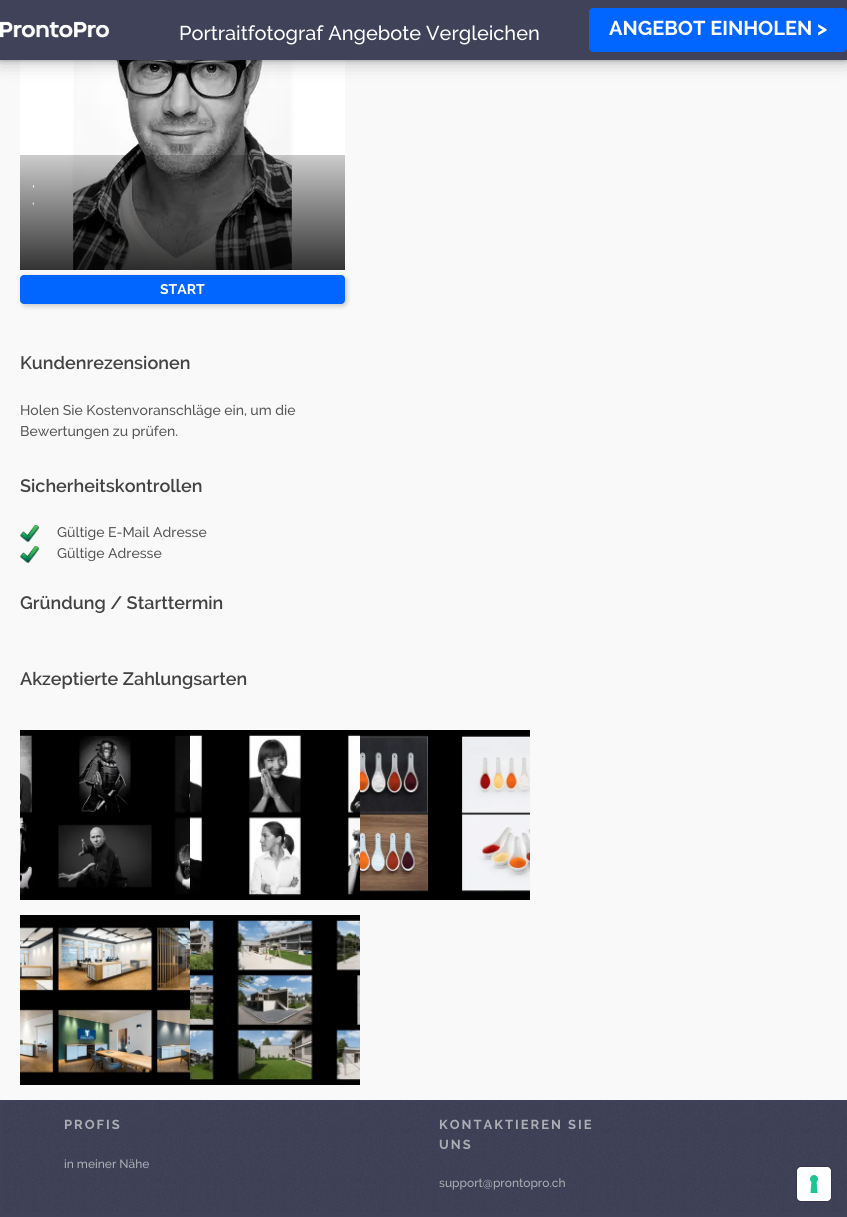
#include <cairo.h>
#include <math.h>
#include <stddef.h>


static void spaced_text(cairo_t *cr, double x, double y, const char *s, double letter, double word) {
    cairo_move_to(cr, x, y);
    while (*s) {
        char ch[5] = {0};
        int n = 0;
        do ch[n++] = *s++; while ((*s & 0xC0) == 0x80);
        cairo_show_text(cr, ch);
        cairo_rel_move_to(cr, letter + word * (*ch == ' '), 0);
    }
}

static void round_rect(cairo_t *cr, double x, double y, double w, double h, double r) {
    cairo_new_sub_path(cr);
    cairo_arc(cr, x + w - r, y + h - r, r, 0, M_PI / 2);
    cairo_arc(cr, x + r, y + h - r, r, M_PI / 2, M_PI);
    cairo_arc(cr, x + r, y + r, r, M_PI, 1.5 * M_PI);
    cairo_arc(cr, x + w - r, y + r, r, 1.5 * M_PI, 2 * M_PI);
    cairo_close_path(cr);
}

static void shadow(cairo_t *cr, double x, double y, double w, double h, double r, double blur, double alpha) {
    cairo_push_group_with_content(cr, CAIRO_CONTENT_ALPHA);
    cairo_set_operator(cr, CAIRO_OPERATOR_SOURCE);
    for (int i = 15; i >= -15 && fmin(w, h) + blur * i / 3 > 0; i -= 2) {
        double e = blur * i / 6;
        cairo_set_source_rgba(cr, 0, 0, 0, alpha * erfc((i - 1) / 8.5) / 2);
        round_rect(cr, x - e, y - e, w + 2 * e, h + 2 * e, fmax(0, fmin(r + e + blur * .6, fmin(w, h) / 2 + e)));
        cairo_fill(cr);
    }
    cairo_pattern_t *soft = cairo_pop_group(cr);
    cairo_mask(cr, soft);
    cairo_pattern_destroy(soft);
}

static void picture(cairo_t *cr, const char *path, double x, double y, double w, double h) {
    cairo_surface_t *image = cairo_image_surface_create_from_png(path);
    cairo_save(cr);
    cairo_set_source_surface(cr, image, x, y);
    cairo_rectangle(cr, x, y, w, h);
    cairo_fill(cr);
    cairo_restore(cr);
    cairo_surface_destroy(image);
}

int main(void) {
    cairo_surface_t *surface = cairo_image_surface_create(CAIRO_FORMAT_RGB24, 847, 1217);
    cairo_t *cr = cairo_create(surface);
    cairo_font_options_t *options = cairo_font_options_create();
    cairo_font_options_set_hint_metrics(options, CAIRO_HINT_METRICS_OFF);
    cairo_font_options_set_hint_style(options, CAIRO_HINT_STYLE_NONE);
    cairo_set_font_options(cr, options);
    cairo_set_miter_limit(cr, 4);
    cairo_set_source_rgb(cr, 0.973, 0.973, 0.973);
    cairo_paint(cr);
    picture(cr, "img2.png", 20, 60, 325, 210);
    cairo_set_source_rgb(cr, 0, 0, 0);
    shadow(cr, 0, 0, 847, 60, 0, 10, 0.3);
    shadow(cr, 0, 0, 847, 60, 0, 2.5, 0.3);
    cairo_set_source_rgb(cr, 0.251, 0.259, 0.349);
    cairo_rectangle(cr, 0, 0, 847, 60);
    cairo_fill(cr);
    picture(cr, "img1.png", 0, 21, 109, 17);
    cairo_select_font_face(cr, "Raleway Medium", CAIRO_FONT_SLANT_NORMAL, CAIRO_FONT_WEIGHT_NORMAL);
    cairo_set_font_size(cr, 20);
    cairo_set_source_rgb(cr, 1, 1, 1);
    cairo_move_to(cr, 179, 40);
    cairo_show_text(cr, "Portraitfotograf Angebote Vergleichen");
    cairo_set_source_rgb(cr, 0, 0.4, 1);
    cairo_new_path(cr);
    cairo_move_to(cr, 589, 46);
    cairo_line_to(cr, 589, 48);
    cairo_curve_to(cr, 589, 50, 591, 52, 593, 52);
    cairo_line_to(cr, 843, 52);
    cairo_curve_to(cr, 845, 52, 847, 50, 847, 48);
    cairo_line_to(cr, 847, 46);
    cairo_curve_to(cr, 847, 48, 845, 50, 843, 50);
    cairo_line_to(cr, 593, 50);
    cairo_curve_to(cr, 591, 50, 589, 48, 589, 46);
    cairo_close_path(cr);
    cairo_fill(cr);
    round_rect(cr, 589, 8, 258, 42, 4);
    cairo_fill(cr);
    cairo_select_font_face(cr, "Raleway", CAIRO_FONT_SLANT_NORMAL, CAIRO_FONT_WEIGHT_BOLD);
    cairo_set_source_rgb(cr, 1, 1, 1);
    cairo_move_to(cr, 609, 35);
    cairo_show_text(cr, "ANGEBOT EINHOLEN >");
    cairo_select_font_face(cr, "Raleway Medium", CAIRO_FONT_SLANT_NORMAL, CAIRO_FONT_WEIGHT_NORMAL);
    cairo_set_font_size(cr, 15);
    cairo_move_to(cr, 32, 191);
    cairo_show_text(cr, "·");
    cairo_set_font_size(cr, 12);
    cairo_move_to(cr, 32, 204);
    cairo_show_text(cr, ",");
    cairo_set_source_rgb(cr, 0, 0, 0);
    shadow(cr, 22, 277, 325, 29, 4, 2.5, 0.2);
    cairo_set_source_rgb(cr, 0, 0.4, 1);
    round_rect(cr, 20, 275, 325, 29, 4);
    cairo_fill(cr);
    cairo_select_font_face(cr, "Raleway", CAIRO_FONT_SLANT_NORMAL, CAIRO_FONT_WEIGHT_BOLD);
    cairo_set_font_size(cr, 14);
    cairo_set_source_rgb(cr, 1, 1, 1);
    cairo_move_to(cr, 160, 294);
    cairo_show_text(cr, "START");
    cairo_select_font_face(cr, "Raleway SemiBold", CAIRO_FONT_SLANT_NORMAL, CAIRO_FONT_WEIGHT_NORMAL);
    cairo_set_font_size(cr, 18);
    cairo_set_source_rgb(cr, 0.263, 0.263, 0.263);
    cairo_move_to(cr, 20, 369);
    cairo_show_text(cr, "Kundenrezensionen");
    cairo_select_font_face(cr, "Raleway Medium", CAIRO_FONT_SLANT_NORMAL, CAIRO_FONT_WEIGHT_NORMAL);
    cairo_set_font_size(cr, 14);
    cairo_set_source_rgb(cr, 0.341, 0.341, 0.341);
    cairo_move_to(cr, 20, 415);
    cairo_show_text(cr, "Holen Sie Kostenvoranschläge ein, um die");
    cairo_move_to(cr, 20, 436);
    cairo_show_text(cr, "Bewertungen zu prüfen.");
    cairo_select_font_face(cr, "Raleway SemiBold", CAIRO_FONT_SLANT_NORMAL, CAIRO_FONT_WEIGHT_NORMAL);
    cairo_set_font_size(cr, 18);
    cairo_set_source_rgb(cr, 0.263, 0.263, 0.263);
    cairo_move_to(cr, 20, 492);
    cairo_show_text(cr, "Sicherheitskontrollen");
    picture(cr, "img3.png", 20, 525, 19, 17);
    cairo_select_font_face(cr, "Raleway Medium", CAIRO_FONT_SLANT_NORMAL, CAIRO_FONT_WEIGHT_NORMAL);
    cairo_set_font_size(cr, 14);
    cairo_set_source_rgb(cr, 0.341, 0.341, 0.341);
    cairo_move_to(cr, 57, 537);
    cairo_show_text(cr, "Gültige E-Mail Adresse");
    picture(cr, "img3.png", 20, 546, 19, 17);
    cairo_move_to(cr, 57, 558);
    cairo_show_text(cr, "Gültige Adresse");
    cairo_select_font_face(cr, "Raleway SemiBold", CAIRO_FONT_SLANT_NORMAL, CAIRO_FONT_WEIGHT_NORMAL);
    cairo_set_font_size(cr, 18);
    cairo_set_source_rgb(cr, 0.263, 0.263, 0.263);
    cairo_move_to(cr, 20, 609);
    cairo_show_text(cr, "Gründung / Starttermin");
    cairo_move_to(cr, 20, 685);
    cairo_show_text(cr, "Akzeptierte Zahlungsarten");
    picture(cr, "img4.png", 20, 730, 170, 170);
    picture(cr, "img5.png", 190, 730, 170, 170);
    picture(cr, "img6.png", 360, 730, 170, 170);
    picture(cr, "img7.png", 20, 915, 170, 170);
    picture(cr, "img8.png", 190, 915, 170, 170);
    cairo_set_source_rgb(cr, 0.251, 0.259, 0.349);
    cairo_rectangle(cr, 0, 1100, 847, 117);
    cairo_fill(cr);
    picture(cr, "img9.png", 2, 1101, 845, 111);
    cairo_select_font_face(cr, "Raleway", CAIRO_FONT_SLANT_NORMAL, CAIRO_FONT_WEIGHT_BOLD);
    cairo_set_font_size(cr, 13);
    cairo_set_source_rgb(cr, 0.678, 0.682, 0.702);
    spaced_text(cr, 64, 1129, "PROFIS", 2, 0);
    cairo_select_font_face(cr, "Raleway Medium", CAIRO_FONT_SLANT_NORMAL, CAIRO_FONT_WEIGHT_NORMAL);
    cairo_set_font_size(cr, 12);
    cairo_move_to(cr, 64, 1168);
    cairo_show_text(cr, "in meiner Nähe");
    cairo_select_font_face(cr, "Raleway", CAIRO_FONT_SLANT_NORMAL, CAIRO_FONT_WEIGHT_BOLD);
    cairo_set_font_size(cr, 13);
    spaced_text(cr, 439, 1129, "KONTAKTIEREN SIE", 2, 0);
    spaced_text(cr, 439, 1149, "UNS", 2, 0);
    cairo_select_font_face(cr, "Raleway Medium", CAIRO_FONT_SLANT_NORMAL, CAIRO_FONT_WEIGHT_NORMAL);
    cairo_set_font_size(cr, 12);
    cairo_move_to(cr, 439, 1187);
    cairo_show_text(cr, "support@prontopro.ch");
    round_rect(cr, 796.5, 1166.5, 35, 35, 4.5);
    cairo_set_source_rgba(cr, 0, 0, 0, 0.15);
    cairo_set_line_width(cr, 1);
    cairo_stroke(cr);
    cairo_set_source_rgb(cr, 1, 1, 1);
    round_rect(cr, 797, 1167, 34, 34, 4);
    cairo_fill(cr);
    picture(cr, "img10.png", 810, 1175, 8, 18);
    cairo_surface_write_to_png(surface, "page.png");
    cairo_font_options_destroy(options);
    cairo_destroy(cr);
    cairo_surface_destroy(surface);
    return 0;
}
